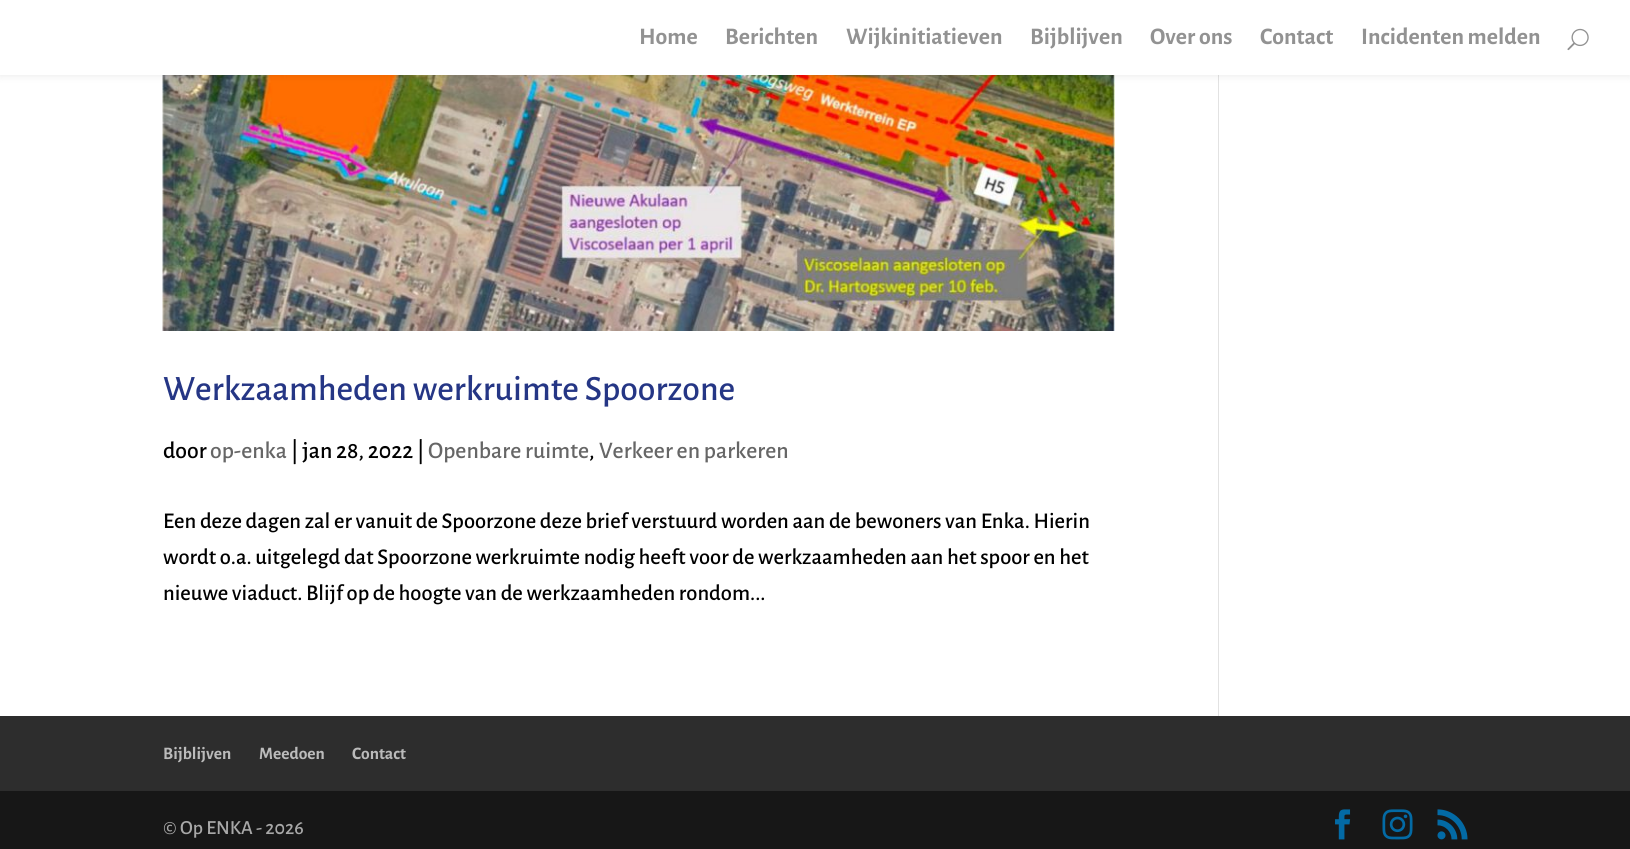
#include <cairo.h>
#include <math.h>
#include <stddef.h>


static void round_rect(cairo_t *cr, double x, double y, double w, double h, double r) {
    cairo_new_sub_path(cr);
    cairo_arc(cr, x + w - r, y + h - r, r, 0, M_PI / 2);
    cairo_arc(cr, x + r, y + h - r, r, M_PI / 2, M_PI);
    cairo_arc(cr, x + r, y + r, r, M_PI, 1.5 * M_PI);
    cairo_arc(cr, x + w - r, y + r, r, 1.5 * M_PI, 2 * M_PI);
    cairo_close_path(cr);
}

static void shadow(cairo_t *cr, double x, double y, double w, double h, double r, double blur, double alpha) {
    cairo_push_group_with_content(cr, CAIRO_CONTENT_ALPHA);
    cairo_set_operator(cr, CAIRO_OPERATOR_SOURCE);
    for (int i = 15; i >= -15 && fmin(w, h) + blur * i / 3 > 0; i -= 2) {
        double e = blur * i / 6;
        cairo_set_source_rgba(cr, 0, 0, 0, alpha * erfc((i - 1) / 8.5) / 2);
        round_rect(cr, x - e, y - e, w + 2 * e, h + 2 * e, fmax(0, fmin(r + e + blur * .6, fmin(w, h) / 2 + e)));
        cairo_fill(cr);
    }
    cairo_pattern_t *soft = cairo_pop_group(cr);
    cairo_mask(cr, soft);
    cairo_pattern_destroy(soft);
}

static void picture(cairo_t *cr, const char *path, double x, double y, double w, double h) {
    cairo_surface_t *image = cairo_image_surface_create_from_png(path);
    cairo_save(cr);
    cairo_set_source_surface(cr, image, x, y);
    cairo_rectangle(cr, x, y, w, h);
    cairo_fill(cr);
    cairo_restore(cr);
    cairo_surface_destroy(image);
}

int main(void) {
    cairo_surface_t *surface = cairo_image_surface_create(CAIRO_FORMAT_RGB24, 1630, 849);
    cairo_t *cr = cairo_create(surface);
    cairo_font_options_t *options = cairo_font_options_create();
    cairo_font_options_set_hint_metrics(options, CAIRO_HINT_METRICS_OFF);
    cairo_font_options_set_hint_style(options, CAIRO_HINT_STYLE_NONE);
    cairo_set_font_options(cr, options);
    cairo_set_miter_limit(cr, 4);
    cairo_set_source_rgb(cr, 1, 1, 1);
    cairo_paint(cr);
    picture(cr, "img2.png", 162, 75, 953, 256);
    cairo_set_source_rgb(cr, 0.886, 0.886, 0.886);
    cairo_rectangle(cr, 1218, 75, 1, 641);
    cairo_fill(cr);
    cairo_set_source_rgb(cr, 0, 0, 0);
    shadow(cr, 0, 0, 1630, 75, 0, 4.5, 0.1);
    cairo_set_source_rgb(cr, 1, 1, 1);
    cairo_rectangle(cr, 0, 0, 1630, 75);
    cairo_fill(cr);
    cairo_select_font_face(cr, "Alegreya Sans", CAIRO_FONT_SLANT_NORMAL, CAIRO_FONT_WEIGHT_BOLD);
    cairo_set_font_size(cr, 23.75);
    cairo_set_source_rgb(cr, 0.573, 0.573, 0.573);
    cairo_move_to(cr, 639, 44);
    cairo_show_text(cr, "Home");
    cairo_move_to(cr, 725, 44);
    cairo_show_text(cr, "Berichten");
    cairo_move_to(cr, 846, 44);
    cairo_show_text(cr, "Wijkinitiatieven");
    cairo_move_to(cr, 1030, 44);
    cairo_show_text(cr, "Bijblijven");
    cairo_move_to(cr, 1150, 44);
    cairo_show_text(cr, "Over ons");
    cairo_move_to(cr, 1260, 44);
    cairo_show_text(cr, "Contact");
    cairo_move_to(cr, 1361, 44);
    cairo_show_text(cr, "Incidenten melden");
    picture(cr, "img1.png", 1567, 28, 22, 23);
    cairo_select_font_face(cr, "Alegreya Sans Medium", CAIRO_FONT_SLANT_NORMAL, CAIRO_FONT_WEIGHT_NORMAL);
    cairo_set_font_size(cr, 35.75);
    cairo_set_source_rgb(cr, 0.145, 0.212, 0.522);
    cairo_move_to(cr, 163, 400);
    cairo_show_text(cr, "Werkzaamheden werkruimte Spoorzone");
    cairo_set_font_size(cr, 23.75);
    cairo_set_source_rgb(cr, 0, 0, 0);
    cairo_move_to(cr, 163, 458);
    cairo_show_text(cr, "door");
    cairo_set_source_rgb(cr, 0.4, 0.4, 0.4);
    cairo_move_to(cr, 210, 458);
    cairo_show_text(cr, "op-enka");
    cairo_set_source_rgb(cr, 0, 0, 0);
    cairo_move_to(cr, 291, 458);
    cairo_show_text(cr, "| jan 28, 2022 |");
    cairo_set_source_rgb(cr, 0.4, 0.4, 0.4);
    cairo_move_to(cr, 428, 458);
    cairo_show_text(cr, "Openbare ruimte");
    cairo_set_source_rgb(cr, 0, 0, 0);
    cairo_move_to(cr, 589, 458);
    cairo_show_text(cr, ",");
    cairo_set_source_rgb(cr, 0.4, 0.4, 0.4);
    cairo_move_to(cr, 599, 458);
    cairo_show_text(cr, "Verkeer en parkeren");
    cairo_set_font_size(cr, 22.5);
    cairo_set_source_rgb(cr, 0, 0, 0);
    cairo_move_to(cr, 163, 528);
    cairo_show_text(cr, "Een deze dagen zal er vanuit de Spoorzone deze brief verstuurd worden aan de bewoners van Enka. Hierin");
    cairo_move_to(cr, 163, 564);
    cairo_show_text(cr, "wordt o.a. uitgelegd dat Spoorzone werkruimte nodig heeft voor de werkzaamheden aan het spoor en het");
    cairo_move_to(cr, 163, 600);
    cairo_show_text(cr, "nieuwe viaduct. Blijf op de hoogte van de werkzaamheden rondom...");
    cairo_set_source_rgb(cr, 0.176, 0.176, 0.176);
    cairo_rectangle(cr, 0, 716, 1630, 75);
    cairo_fill(cr);
    cairo_select_font_face(cr, "Alegreya Sans", CAIRO_FONT_SLANT_NORMAL, CAIRO_FONT_WEIGHT_BOLD);
    cairo_set_font_size(cr, 17.5);
    cairo_set_source_rgb(cr, 0.733, 0.733, 0.733);
    cairo_move_to(cr, 163, 759);
    cairo_show_text(cr, "Bijblijven");
    cairo_move_to(cr, 259, 759);
    cairo_show_text(cr, "Meedoen");
    cairo_move_to(cr, 352, 759);
    cairo_show_text(cr, "Contact");
    cairo_set_source_rgb(cr, 0.09, 0.09, 0.09);
    cairo_rectangle(cr, 0, 791, 1630, 58);
    cairo_fill(cr);
    cairo_select_font_face(cr, "Alegreya Sans Medium", CAIRO_FONT_SLANT_NORMAL, CAIRO_FONT_WEIGHT_NORMAL);
    cairo_set_font_size(cr, 20);
    cairo_set_source_rgb(cr, 0.659, 0.659, 0.659);
    cairo_move_to(cr, 163, 834);
    cairo_show_text(cr, "© Op ENKA - 2026");
    picture(cr, "img3.png", 1335, 809, 16, 31);
    picture(cr, "img4.png", 1382, 809, 31, 31);
    picture(cr, "img5.png", 1437, 809, 31, 31);
    cairo_surface_write_to_png(surface, "page.png");
    cairo_font_options_destroy(options);
    cairo_destroy(cr);
    cairo_surface_destroy(surface);
    return 0;
}
